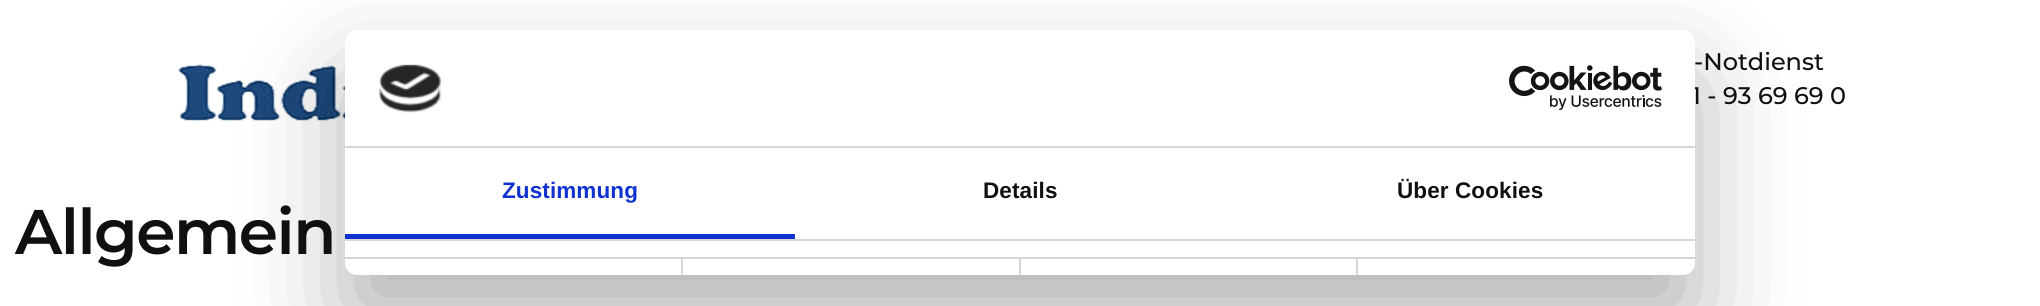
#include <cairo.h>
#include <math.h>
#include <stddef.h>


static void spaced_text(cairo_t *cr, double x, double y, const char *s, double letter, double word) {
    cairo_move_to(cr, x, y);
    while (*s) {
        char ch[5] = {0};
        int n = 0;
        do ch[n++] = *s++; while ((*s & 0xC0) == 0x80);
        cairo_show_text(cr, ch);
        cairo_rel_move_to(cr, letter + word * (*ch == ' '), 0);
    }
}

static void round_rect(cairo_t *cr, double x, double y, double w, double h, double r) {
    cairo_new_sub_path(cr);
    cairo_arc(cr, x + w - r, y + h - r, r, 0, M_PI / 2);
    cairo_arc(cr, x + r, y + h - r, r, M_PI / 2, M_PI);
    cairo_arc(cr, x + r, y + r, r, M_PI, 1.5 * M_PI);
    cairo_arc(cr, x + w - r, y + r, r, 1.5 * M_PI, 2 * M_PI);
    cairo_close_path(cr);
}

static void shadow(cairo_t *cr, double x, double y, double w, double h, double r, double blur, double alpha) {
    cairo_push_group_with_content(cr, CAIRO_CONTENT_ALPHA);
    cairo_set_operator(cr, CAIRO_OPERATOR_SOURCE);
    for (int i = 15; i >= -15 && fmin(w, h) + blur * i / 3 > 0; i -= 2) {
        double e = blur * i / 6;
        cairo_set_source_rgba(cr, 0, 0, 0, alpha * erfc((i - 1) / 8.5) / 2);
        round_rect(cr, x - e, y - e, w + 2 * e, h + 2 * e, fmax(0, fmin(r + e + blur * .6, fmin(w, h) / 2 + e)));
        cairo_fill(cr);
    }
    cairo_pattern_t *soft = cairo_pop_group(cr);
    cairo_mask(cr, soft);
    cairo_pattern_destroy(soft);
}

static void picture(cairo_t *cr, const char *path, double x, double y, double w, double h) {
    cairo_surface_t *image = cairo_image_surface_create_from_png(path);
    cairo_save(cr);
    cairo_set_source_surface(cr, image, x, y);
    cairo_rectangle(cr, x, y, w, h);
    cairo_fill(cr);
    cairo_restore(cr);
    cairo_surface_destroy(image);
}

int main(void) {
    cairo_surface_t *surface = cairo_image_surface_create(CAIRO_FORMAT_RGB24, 2040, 306);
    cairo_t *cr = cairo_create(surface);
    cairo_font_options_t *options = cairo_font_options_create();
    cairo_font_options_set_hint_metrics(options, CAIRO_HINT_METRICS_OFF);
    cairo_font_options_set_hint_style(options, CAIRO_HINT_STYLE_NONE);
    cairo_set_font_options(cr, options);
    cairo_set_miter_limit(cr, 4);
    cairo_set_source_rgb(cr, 1, 1, 1);
    cairo_paint(cr);
    picture(cr, "img1.png", 178, 64, 167, 58);
    cairo_select_font_face(cr, "Montserrat Medium", CAIRO_FONT_SLANT_NORMAL, CAIRO_FONT_WEIGHT_NORMAL);
    cairo_set_font_size(cr, 24);
    cairo_set_source_rgb(cr, 0.063, 0.063, 0.063);
    cairo_move_to(cr, 1694, 70);
    cairo_show_text(cr, "-Notdienst");
    cairo_move_to(cr, 1692, 104);
    cairo_show_text(cr, "1 - 93 69 69 0");
    cairo_set_source_rgb(cr, 0, 0, 0);
    shadow(cr, 345, 78, 1350, 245, 12, 51, 0.3);
    cairo_set_source_rgb(cr, 1, 1, 1);
    round_rect(cr, 345, 30, 1350, 245, 12);
    cairo_fill(cr);
    cairo_set_source_rgb(cr, 0.839, 0.839, 0.839);
    cairo_rectangle(cr, 345, 146, 1350, 2);
    cairo_fill(cr);
    picture(cr, "img2.png", 379, 64, 63, 49);
    picture(cr, "img3.png", 1509, 65, 153, 45);
    cairo_rectangle(cr, 345, 239, 1350, 2);
    cairo_fill(cr);
    cairo_set_source_rgb(cr, 0.063, 0.196, 0.812);
    cairo_rectangle(cr, 345, 234, 450, 5);
    cairo_fill(cr);
    cairo_select_font_face(cr, "Liberation Sans", CAIRO_FONT_SLANT_NORMAL, CAIRO_FONT_WEIGHT_BOLD);
    cairo_set_font_size(cr, 22.5);
    spaced_text(cr, 502, 198, "Zustimmung", 0.1, 0);
    cairo_set_source_rgb(cr, 0.063, 0.063, 0.063);
    spaced_text(cr, 983, 198, "Details", 0.1, 0);
    spaced_text(cr, 1397, 198, "Über Cookies", 0.1, 0);
    cairo_set_source_rgb(cr, 0.839, 0.839, 0.839);
    cairo_rectangle(cr, 681, 258, 2, 17);
    cairo_fill(cr);
    cairo_rectangle(cr, 1019, 258, 2, 17);
    cairo_fill(cr);
    cairo_rectangle(cr, 1356, 258, 2, 17);
    cairo_fill(cr);
    cairo_rectangle(cr, 345, 257, 1350, 2);
    cairo_fill(cr);
    cairo_select_font_face(cr, "Montserrat SemiBold", CAIRO_FONT_SLANT_NORMAL, CAIRO_FONT_WEIGHT_NORMAL);
    cairo_set_font_size(cr, 63);
    cairo_set_source_rgb(cr, 0.063, 0.063, 0.063);
    spaced_text(cr, 15, 254, "Allgemein", -1.5, 0);
    cairo_surface_write_to_png(surface, "page.png");
    cairo_font_options_destroy(options);
    cairo_destroy(cr);
    cairo_surface_destroy(surface);
    return 0;
}
